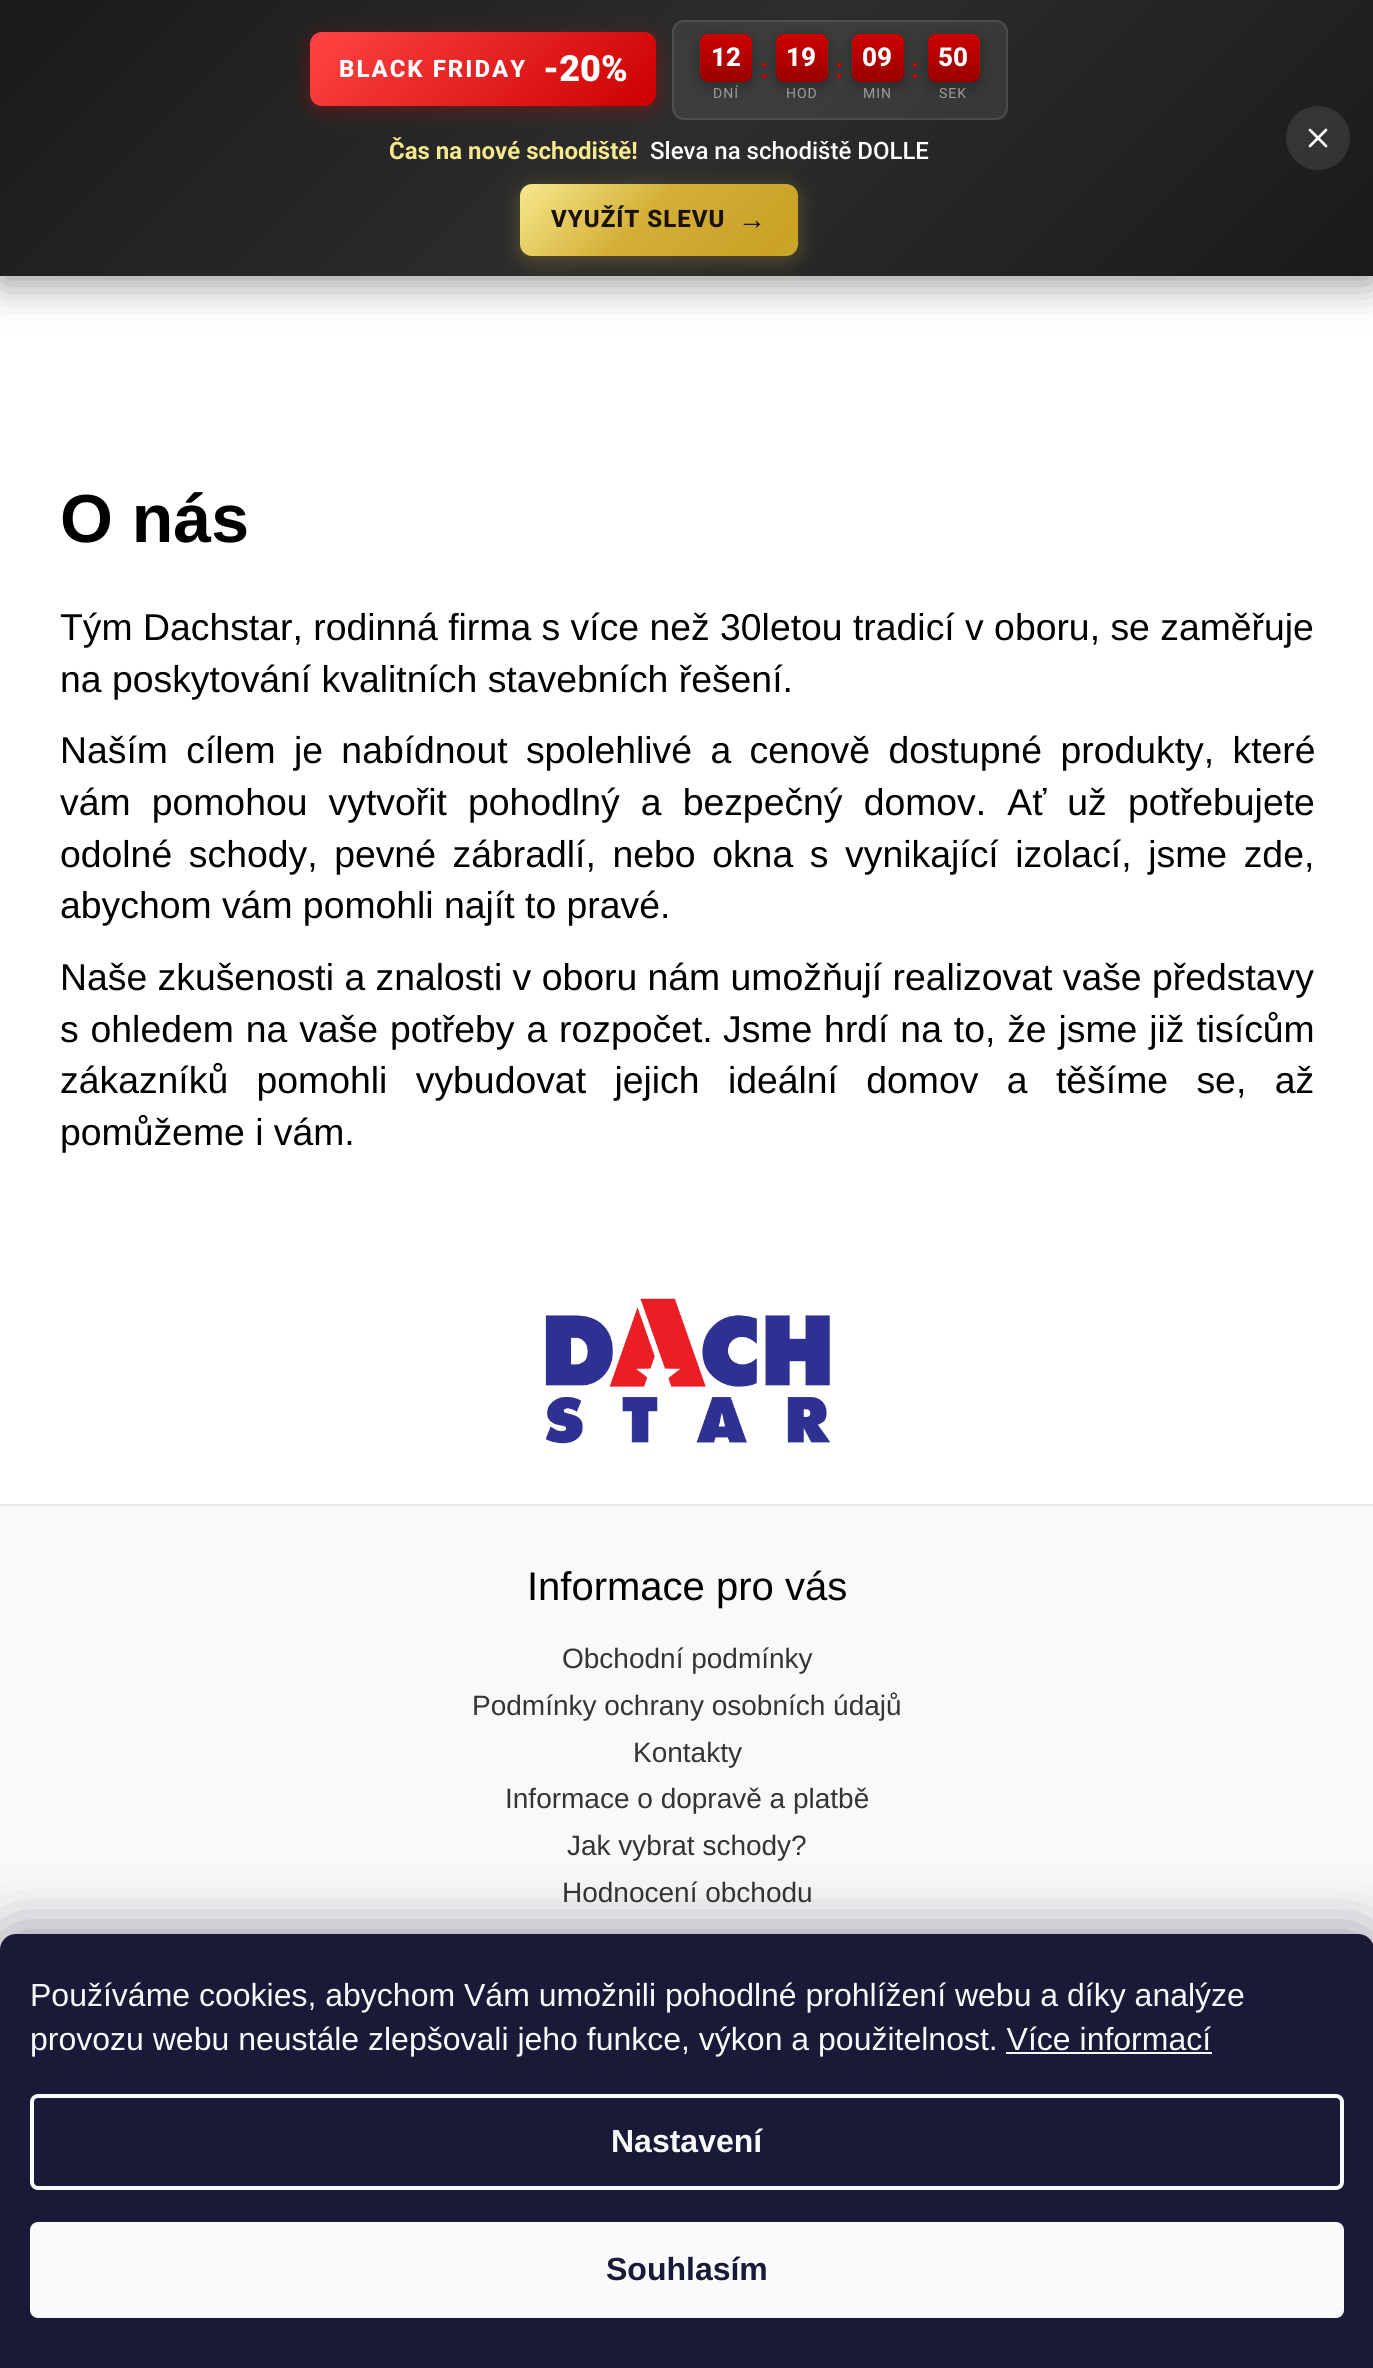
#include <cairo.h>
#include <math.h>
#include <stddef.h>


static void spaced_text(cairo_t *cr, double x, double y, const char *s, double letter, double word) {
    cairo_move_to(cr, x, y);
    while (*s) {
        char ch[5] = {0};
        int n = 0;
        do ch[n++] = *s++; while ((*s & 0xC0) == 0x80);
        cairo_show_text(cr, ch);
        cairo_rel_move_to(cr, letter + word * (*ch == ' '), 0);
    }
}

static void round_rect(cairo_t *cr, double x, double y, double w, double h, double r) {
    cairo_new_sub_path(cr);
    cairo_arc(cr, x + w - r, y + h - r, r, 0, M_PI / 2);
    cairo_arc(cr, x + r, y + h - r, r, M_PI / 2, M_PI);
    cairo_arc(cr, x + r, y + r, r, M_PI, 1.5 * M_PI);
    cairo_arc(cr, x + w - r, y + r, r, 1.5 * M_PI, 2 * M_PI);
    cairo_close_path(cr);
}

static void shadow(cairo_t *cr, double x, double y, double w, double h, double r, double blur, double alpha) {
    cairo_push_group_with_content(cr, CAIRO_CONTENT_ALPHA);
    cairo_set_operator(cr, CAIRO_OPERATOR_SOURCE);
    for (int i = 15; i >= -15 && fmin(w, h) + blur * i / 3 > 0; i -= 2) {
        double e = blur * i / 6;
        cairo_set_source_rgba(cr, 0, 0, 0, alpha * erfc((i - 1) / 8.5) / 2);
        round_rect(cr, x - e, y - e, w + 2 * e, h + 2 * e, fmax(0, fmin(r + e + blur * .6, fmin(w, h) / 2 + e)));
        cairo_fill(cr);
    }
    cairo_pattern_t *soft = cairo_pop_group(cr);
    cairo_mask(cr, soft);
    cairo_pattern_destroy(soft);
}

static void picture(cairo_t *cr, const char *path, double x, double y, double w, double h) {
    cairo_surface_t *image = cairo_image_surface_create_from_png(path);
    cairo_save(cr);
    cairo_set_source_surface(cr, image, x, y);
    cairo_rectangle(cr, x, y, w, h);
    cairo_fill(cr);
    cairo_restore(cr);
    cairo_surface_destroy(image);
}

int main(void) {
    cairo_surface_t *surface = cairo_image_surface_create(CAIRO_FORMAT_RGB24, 1373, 2368);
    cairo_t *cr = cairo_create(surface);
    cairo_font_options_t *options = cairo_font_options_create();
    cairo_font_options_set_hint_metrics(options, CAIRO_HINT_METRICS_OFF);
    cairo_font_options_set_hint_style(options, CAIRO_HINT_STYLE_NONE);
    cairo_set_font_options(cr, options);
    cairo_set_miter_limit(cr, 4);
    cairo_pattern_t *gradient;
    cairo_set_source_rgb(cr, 1, 1, 1);
    cairo_paint(cr);
    cairo_set_source_rgb(cr, 0, 0, 0);
    shadow(cr, 0, 8, 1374, 276, 0, 20, 0.4);
    gradient = cairo_pattern_create_linear(274, -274, 1100, 551);
    cairo_pattern_add_color_stop_rgba(gradient, 0, 0.102, 0.102, 0.102, 1);
    cairo_pattern_add_color_stop_rgba(gradient, 0.5, 0.176, 0.176, 0.176, 1);
    cairo_pattern_add_color_stop_rgba(gradient, 1, 0.102, 0.102, 0.102, 1);
    cairo_set_source(cr, gradient);
    cairo_pattern_destroy(gradient);
    cairo_rectangle(cr, 0, 0, 1373, 276);
    cairo_fill(cr);
    cairo_set_source_rgb(cr, 1, 0, 0);
    shadow(cr, 310, 36, 346, 74, 12, 10, 0.3);
    gradient = cairo_pattern_create_linear(378, -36, 588, 174);
    cairo_pattern_add_color_stop_rgba(gradient, 0, 1, 0.267, 0.267, 1);
    cairo_pattern_add_color_stop_rgba(gradient, 1, 0.8, 0, 0, 1);
    cairo_set_source(cr, gradient);
    cairo_pattern_destroy(gradient);
    round_rect(cr, 310, 32, 346, 74, 12);
    cairo_fill(cr);
    cairo_select_font_face(cr, "Roboto ExtraBold", CAIRO_FONT_SLANT_NORMAL, CAIRO_FONT_WEIGHT_NORMAL);
    cairo_set_font_size(cr, 24);
    cairo_set_source_rgb(cr, 1, 1, 1);
    spaced_text(cr, 339, 77, "BLACK FRIDAY", 2, 0);
    cairo_select_font_face(cr, "Roboto Black", CAIRO_FONT_SLANT_NORMAL, CAIRO_FONT_WEIGHT_NORMAL);
    cairo_set_font_size(cr, 36);
    cairo_move_to(cr, 543, 81);
    cairo_show_text(cr, "-20%");
    cairo_set_source_rgba(cr, 1, 1, 1, 0.08);
    round_rect(cr, 672, 20, 336, 100, 12);
    cairo_fill(cr);
    round_rect(cr, 673, 21, 334, 98, 11);
    cairo_set_source_rgba(cr, 1, 1, 1, 0.1);
    cairo_stroke(cr);
    cairo_set_source_rgb(cr, 0, 0, 0);
    shadow(cr, 700, 38, 52, 48, 8, 8, 0.3);
    gradient = cairo_pattern_create_linear(726, 34, 726, 82);
    cairo_pattern_add_color_stop_rgba(gradient, 0, 0.8, 0, 0, 1);
    cairo_pattern_add_color_stop_rgba(gradient, 1, 0.6, 0, 0, 1);
    cairo_set_source(cr, gradient);
    cairo_pattern_destroy(gradient);
    round_rect(cr, 700, 34, 52, 48, 8);
    cairo_fill(cr);
    cairo_select_font_face(cr, "Roboto ExtraBold", CAIRO_FONT_SLANT_NORMAL, CAIRO_FONT_WEIGHT_NORMAL);
    cairo_set_font_size(cr, 26);
    cairo_set_source_rgb(cr, 1, 1, 1);
    cairo_move_to(cr, 711, 66);
    cairo_show_text(cr, "12");
    cairo_select_font_face(cr, "Roboto", CAIRO_FONT_SLANT_NORMAL, CAIRO_FONT_WEIGHT_NORMAL);
    cairo_set_font_size(cr, 14);
    cairo_set_source_rgb(cr, 0.612, 0.612, 0.612);
    spaced_text(cr, 713, 98, "DNÍ", 1, 0);
    cairo_select_font_face(cr, "Roboto", CAIRO_FONT_SLANT_NORMAL, CAIRO_FONT_WEIGHT_BOLD);
    cairo_set_font_size(cr, 28);
    cairo_set_source_rgb(cr, 0.8, 0, 0);
    cairo_move_to(cr, 760, 78);
    cairo_show_text(cr, ":");
    cairo_set_source_rgb(cr, 0, 0, 0);
    shadow(cr, 776, 38, 52, 48, 8, 8, 0.3);
    gradient = cairo_pattern_create_linear(802, 34, 802, 82);
    cairo_pattern_add_color_stop_rgba(gradient, 0, 0.8, 0, 0, 1);
    cairo_pattern_add_color_stop_rgba(gradient, 1, 0.6, 0, 0, 1);
    cairo_set_source(cr, gradient);
    cairo_pattern_destroy(gradient);
    round_rect(cr, 776, 34, 52, 48, 8);
    cairo_fill(cr);
    cairo_select_font_face(cr, "Roboto ExtraBold", CAIRO_FONT_SLANT_NORMAL, CAIRO_FONT_WEIGHT_NORMAL);
    cairo_set_font_size(cr, 26);
    cairo_set_source_rgb(cr, 1, 1, 1);
    cairo_move_to(cr, 786, 66);
    cairo_show_text(cr, "19");
    cairo_select_font_face(cr, "Roboto", CAIRO_FONT_SLANT_NORMAL, CAIRO_FONT_WEIGHT_NORMAL);
    cairo_set_font_size(cr, 14);
    cairo_set_source_rgb(cr, 0.612, 0.612, 0.612);
    spaced_text(cr, 786, 98, "HOD", 1, 0);
    cairo_select_font_face(cr, "Roboto", CAIRO_FONT_SLANT_NORMAL, CAIRO_FONT_WEIGHT_BOLD);
    cairo_set_font_size(cr, 28);
    cairo_set_source_rgb(cr, 0.8, 0, 0);
    cairo_move_to(cr, 835, 78);
    cairo_show_text(cr, ":");
    cairo_set_source_rgb(cr, 0, 0, 0);
    shadow(cr, 852, 38, 52, 48, 8, 8, 0.3);
    gradient = cairo_pattern_create_linear(878, 34, 878, 82);
    cairo_pattern_add_color_stop_rgba(gradient, 0, 0.8, 0, 0, 1);
    cairo_pattern_add_color_stop_rgba(gradient, 1, 0.6, 0, 0, 1);
    cairo_set_source(cr, gradient);
    cairo_pattern_destroy(gradient);
    round_rect(cr, 852, 34, 52, 48, 8);
    cairo_fill(cr);
    cairo_select_font_face(cr, "Roboto ExtraBold", CAIRO_FONT_SLANT_NORMAL, CAIRO_FONT_WEIGHT_NORMAL);
    cairo_set_font_size(cr, 26);
    cairo_set_source_rgb(cr, 1, 1, 1);
    cairo_move_to(cr, 862, 66);
    cairo_show_text(cr, "09");
    cairo_select_font_face(cr, "Roboto", CAIRO_FONT_SLANT_NORMAL, CAIRO_FONT_WEIGHT_NORMAL);
    cairo_set_font_size(cr, 14);
    cairo_set_source_rgb(cr, 0.612, 0.612, 0.612);
    spaced_text(cr, 863, 98, "MIN", 1, 0);
    cairo_select_font_face(cr, "Roboto", CAIRO_FONT_SLANT_NORMAL, CAIRO_FONT_WEIGHT_BOLD);
    cairo_set_font_size(cr, 28);
    cairo_set_source_rgb(cr, 0.8, 0, 0);
    cairo_move_to(cr, 911, 78);
    cairo_show_text(cr, ":");
    cairo_set_source_rgb(cr, 0, 0, 0);
    shadow(cr, 928, 38, 52, 48, 8, 8, 0.3);
    gradient = cairo_pattern_create_linear(954, 34, 954, 82);
    cairo_pattern_add_color_stop_rgba(gradient, 0, 0.8, 0, 0, 1);
    cairo_pattern_add_color_stop_rgba(gradient, 1, 0.6, 0, 0, 1);
    cairo_set_source(cr, gradient);
    cairo_pattern_destroy(gradient);
    round_rect(cr, 928, 34, 52, 48, 8);
    cairo_fill(cr);
    cairo_select_font_face(cr, "Roboto ExtraBold", CAIRO_FONT_SLANT_NORMAL, CAIRO_FONT_WEIGHT_NORMAL);
    cairo_set_font_size(cr, 26);
    cairo_set_source_rgb(cr, 1, 1, 1);
    cairo_move_to(cr, 938, 66);
    cairo_show_text(cr, "50");
    cairo_select_font_face(cr, "Roboto", CAIRO_FONT_SLANT_NORMAL, CAIRO_FONT_WEIGHT_NORMAL);
    cairo_set_font_size(cr, 14);
    cairo_set_source_rgb(cr, 0.612, 0.612, 0.612);
    spaced_text(cr, 939, 98, "SEK", 1, 0);
    cairo_select_font_face(cr, "Roboto", CAIRO_FONT_SLANT_NORMAL, CAIRO_FONT_WEIGHT_BOLD);
    cairo_set_font_size(cr, 24);
    cairo_set_source_rgb(cr, 0.969, 0.914, 0.557);
    cairo_move_to(cr, 389, 159);
    cairo_show_text(cr, "Čas na nové schodiště!");
    cairo_select_font_face(cr, "Roboto Medium", CAIRO_FONT_SLANT_NORMAL, CAIRO_FONT_WEIGHT_NORMAL);
    cairo_set_source_rgb(cr, 1, 1, 1);
    cairo_move_to(cr, 650, 159);
    cairo_show_text(cr, "Sleva na schodiště DOLLE");
    cairo_set_source_rgba(cr, 1, 1, 1, 0.1);
    cairo_new_path(cr);
    cairo_arc(cr, 1318, 138, 32, 0, 2 * M_PI);
    cairo_fill(cr);
    cairo_new_path(cr);
    cairo_move_to(cr, 1326, 130);
    cairo_line_to(cr, 1310, 146);
    cairo_move_to(cr, 1310, 130);
    cairo_line_to(cr, 1326, 146);
    cairo_set_source_rgb(cr, 1, 1, 1);
    cairo_set_line_width(cr, 2.7);
    cairo_set_line_cap(cr, CAIRO_LINE_CAP_ROUND);
    cairo_set_line_join(cr, CAIRO_LINE_JOIN_ROUND);
    cairo_stroke(cr);
    cairo_set_source_rgb(cr, 0.831, 0.686, 0.216);
    shadow(cr, 520, 188, 278, 72, 12, 10, 0.3);
    gradient = cairo_pattern_create_linear(641, 63, 955, 377);
    cairo_pattern_add_color_stop_rgba(gradient, 0, 0.969, 0.914, 0.557, 1);
    cairo_pattern_add_color_stop_rgba(gradient, 0.25, 0.831, 0.686, 0.216, 1);
    cairo_pattern_add_color_stop_rgba(gradient, 0.5, 0.788, 0.635, 0.153, 1);
    cairo_pattern_add_color_stop_rgba(gradient, 0.75, 0.831, 0.686, 0.216, 1);
    cairo_pattern_add_color_stop_rgba(gradient, 1, 0.969, 0.914, 0.557, 1);
    cairo_set_source(cr, gradient);
    cairo_pattern_destroy(gradient);
    round_rect(cr, 520, 184, 278, 72, 12);
    cairo_fill(cr);
    cairo_select_font_face(cr, "Roboto ExtraBold", CAIRO_FONT_SLANT_NORMAL, CAIRO_FONT_WEIGHT_NORMAL);
    cairo_set_source_rgb(cr, 0.102, 0.063, 0);
    spaced_text(cr, 551, 227, "VYUŽÍT SLEVU", 1, 0);
    cairo_select_font_face(cr, "Liberation Sans", CAIRO_FONT_SLANT_NORMAL, CAIRO_FONT_WEIGHT_BOLD);
    cairo_set_font_size(cr, 28);
    spaced_text(cr, 738, 229, "→", 1, 0);
    cairo_set_font_size(cr, 68);
    cairo_set_source_rgb(cr, 0, 0, 0);
    cairo_move_to(cr, 60, 542);
    cairo_show_text(cr, "O nás");
    cairo_select_font_face(cr, "Liberation Sans", CAIRO_FONT_SLANT_NORMAL, CAIRO_FONT_WEIGHT_NORMAL);
    cairo_set_font_size(cr, 37.35);
    cairo_move_to(cr, 60, 640);
    cairo_show_text(cr, "Tým Dachstar, rodinná firma s více než 30letou tradicí v oboru, se zaměřuje");
    cairo_move_to(cr, 60, 692);
    cairo_show_text(cr, "na poskytování kvalitních stavebních řešení.");
    spaced_text(cr, 60, 763, "Naším cílem je nabídnout spolehlivé a cenově dostupné produkty, které", 0, 8);
    spaced_text(cr, 60, 815, "vám pomohou vytvořit pohodlný a bezpečný domov. Ať už potřebujete", 0, 10.75);
    spaced_text(cr, 60, 867, "odolné schody, pevné zábradlí, nebo okna s vynikající izolací, jsme zde,", 0, 6.25);
    cairo_move_to(cr, 60, 918);
    cairo_show_text(cr, "abychom vám pomohli najít to pravé.");
    cairo_move_to(cr, 60, 990);
    cairo_show_text(cr, "Naše zkušenosti a znalosti v oboru nám umožňují realizovat vaše představy");
    spaced_text(cr, 60, 1042, "s ohledem na vaše potřeby a rozpočet.", 0, 1.5);
    spaced_text(cr, 723, 1042, "Jsme hrdí na to, že jsme již tisícům", 0, 1.5);
    spaced_text(cr, 60, 1093, "zákazníků pomohli vybudovat jejich ideální domov a těšíme se, až", 0, 18);
    cairo_move_to(cr, 60, 1145);
    cairo_show_text(cr, "pomůžeme i vám.");
    picture(cr, "img1.png", 545, 1298, 286, 146);
    cairo_set_source_rgb(cr, 0.976, 0.976, 0.976);
    cairo_rectangle(cr, 0, 1506, 1373, 444);
    cairo_fill(cr);
    cairo_set_source_rgb(cr, 0.902, 0.902, 0.902);
    cairo_rectangle(cr, 0, 1504, 1373, 2);
    cairo_fill(cr);
    cairo_set_font_size(cr, 40);
    cairo_set_source_rgb(cr, 0, 0, 0);
    cairo_move_to(cr, 527, 1600);
    cairo_show_text(cr, "Informace pro vás");
    cairo_set_font_size(cr, 28);
    cairo_set_source_rgb(cr, 0.204, 0.204, 0.204);
    cairo_move_to(cr, 562, 1668);
    cairo_show_text(cr, "Obchodní podmínky");
    cairo_move_to(cr, 472, 1715);
    cairo_show_text(cr, "Podmínky ochrany osobních údajů");
    cairo_move_to(cr, 633, 1762);
    cairo_show_text(cr, "Kontakty");
    cairo_move_to(cr, 505, 1808);
    cairo_show_text(cr, "Informace o dopravě a platbě");
    cairo_move_to(cr, 567, 1855);
    cairo_show_text(cr, "Jak vybrat schody?");
    cairo_move_to(cr, 562, 1902);
    cairo_show_text(cr, "Hodnocení obchodu");
    cairo_set_source_rgb(cr, 0.106, 0.098, 0.224);
    shadow(cr, 0, 1934, 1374, 434, 16, 30, 0.5);
    cairo_set_source_rgb(cr, 0.102, 0.098, 0.216);
    cairo_new_path(cr);
    cairo_move_to(cr, 16, 1934);
    cairo_line_to(cr, 1358, 1934);
    cairo_curve_to(cr, 1367, 1934, 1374, 1941, 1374, 1950);
    cairo_line_to(cr, 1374, 2368);
    cairo_line_to(cr, 0, 2368);
    cairo_line_to(cr, 0, 1950);
    cairo_curve_to(cr, 0, 1941, 7, 1934, 16, 1934);
    cairo_close_path(cr);
    cairo_fill(cr);
    cairo_set_font_size(cr, 32);
    cairo_set_source_rgb(cr, 0.973, 0.98, 0.984);
    cairo_move_to(cr, 30, 2006);
    cairo_show_text(cr, "Používáme cookies, abychom Vám umožnili pohodlné prohlížení webu a díky analýze");
    cairo_move_to(cr, 30, 2050);
    cairo_show_text(cr, "provozu webu neustále zlepšovali jeho funkce, výkon a použitelnost. Více informací");
    cairo_rectangle(cr, 1006, 2052, 206, 2);
    cairo_fill(cr);
    round_rect(cr, 32, 2096, 1310, 92, 6);
    cairo_set_line_width(cr, 4);
    cairo_set_line_cap(cr, CAIRO_LINE_CAP_BUTT);
    cairo_set_line_join(cr, CAIRO_LINE_JOIN_MITER);
    cairo_stroke(cr);
    cairo_select_font_face(cr, "Liberation Sans", CAIRO_FONT_SLANT_NORMAL, CAIRO_FONT_WEIGHT_BOLD);
    cairo_move_to(cr, 611, 2152);
    cairo_show_text(cr, "Nastavení");
    round_rect(cr, 30, 2222, 1314, 96, 8);
    cairo_fill(cr);
    cairo_set_source_rgb(cr, 0.102, 0.098, 0.216);
    cairo_move_to(cr, 606, 2280);
    cairo_show_text(cr, "Souhlasím");
    cairo_surface_write_to_png(surface, "page.png");
    cairo_font_options_destroy(options);
    cairo_destroy(cr);
    cairo_surface_destroy(surface);
    return 0;
}
